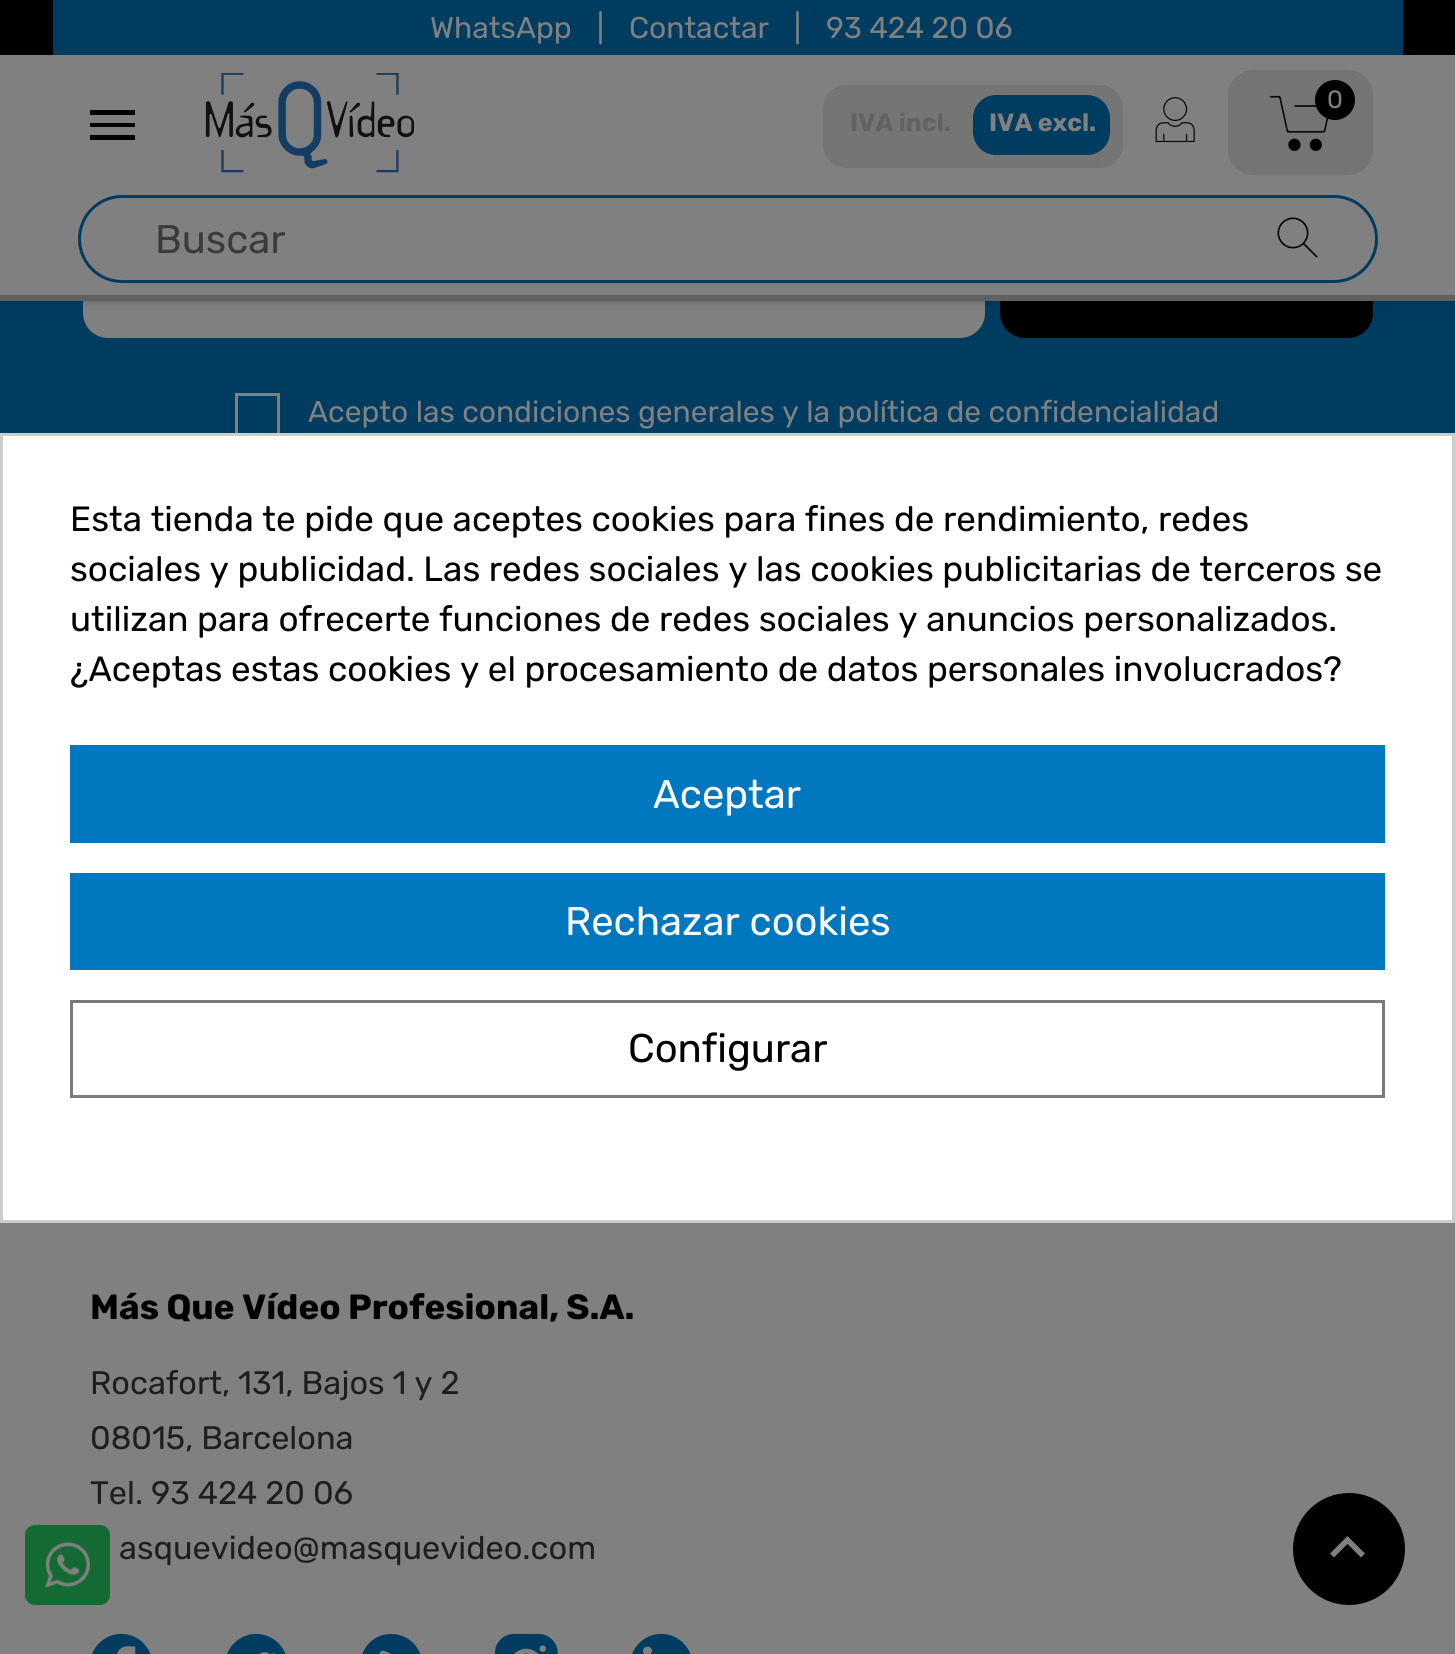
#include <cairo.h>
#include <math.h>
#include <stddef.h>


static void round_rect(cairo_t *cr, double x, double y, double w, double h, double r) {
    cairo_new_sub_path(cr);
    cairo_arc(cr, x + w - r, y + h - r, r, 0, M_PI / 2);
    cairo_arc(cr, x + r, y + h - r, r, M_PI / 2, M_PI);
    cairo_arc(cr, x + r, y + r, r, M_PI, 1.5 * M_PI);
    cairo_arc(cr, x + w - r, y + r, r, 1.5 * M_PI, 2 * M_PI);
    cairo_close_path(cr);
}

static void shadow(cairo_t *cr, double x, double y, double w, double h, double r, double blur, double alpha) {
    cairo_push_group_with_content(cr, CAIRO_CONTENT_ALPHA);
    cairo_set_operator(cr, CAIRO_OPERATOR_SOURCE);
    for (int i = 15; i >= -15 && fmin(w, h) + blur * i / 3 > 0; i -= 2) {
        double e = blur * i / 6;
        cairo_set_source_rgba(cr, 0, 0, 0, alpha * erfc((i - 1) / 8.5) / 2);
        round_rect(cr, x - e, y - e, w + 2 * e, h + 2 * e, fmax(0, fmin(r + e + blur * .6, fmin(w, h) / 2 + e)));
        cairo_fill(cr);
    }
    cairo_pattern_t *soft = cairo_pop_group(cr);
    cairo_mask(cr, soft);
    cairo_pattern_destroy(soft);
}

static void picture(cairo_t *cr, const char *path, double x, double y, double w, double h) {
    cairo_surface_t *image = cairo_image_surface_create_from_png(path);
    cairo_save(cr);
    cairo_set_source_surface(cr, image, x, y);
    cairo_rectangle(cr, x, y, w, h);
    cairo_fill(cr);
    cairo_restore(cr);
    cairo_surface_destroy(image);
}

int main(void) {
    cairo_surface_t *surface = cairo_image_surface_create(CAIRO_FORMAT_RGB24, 1455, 1654);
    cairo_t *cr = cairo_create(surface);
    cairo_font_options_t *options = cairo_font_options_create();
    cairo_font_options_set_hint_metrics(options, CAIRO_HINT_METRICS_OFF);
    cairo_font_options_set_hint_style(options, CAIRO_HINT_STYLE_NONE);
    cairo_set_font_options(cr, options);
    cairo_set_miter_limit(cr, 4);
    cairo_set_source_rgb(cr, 0.502, 0.502, 0.502);
    cairo_paint(cr);
    cairo_set_source_rgb(cr, 0, 0.235, 0.373);
    cairo_rectangle(cr, 0, 301, 1455, 132);
    cairo_fill(cr);
    cairo_set_source_rgb(cr, 0.502, 0.502, 0.502);
    round_rect(cr, 83, 238, 902, 100, 25);
    cairo_fill(cr);
    cairo_set_source_rgb(cr, 0, 0, 0);
    round_rect(cr, 1000, 238, 373, 100, 25);
    cairo_fill(cr);
    cairo_set_source_rgb(cr, 0, 0, 0);
    shadow(cr, 0, 3, 1455, 300, 0, 2.5, 0.15);
    cairo_set_source_rgb(cr, 0.502, 0.502, 0.502);
    cairo_rectangle(cr, 0, 55, 1455, 240);
    cairo_fill(cr);
    cairo_set_source_rgb(cr, 0, 0, 0);
    cairo_rectangle(cr, 0, 0, 1455, 55);
    cairo_fill(cr);
    cairo_set_source_rgb(cr, 0, 0.235, 0.373);
    cairo_rectangle(cr, 53, 0, 1350, 55);
    cairo_fill(cr);
    cairo_select_font_face(cr, "Rubik", CAIRO_FONT_SLANT_NORMAL, CAIRO_FONT_WEIGHT_NORMAL);
    cairo_set_font_size(cr, 30);
    cairo_set_source_rgb(cr, 0.502, 0.502, 0.502);
    cairo_move_to(cr, 430, 38);
    cairo_show_text(cr, "WhatsApp");
    cairo_move_to(cr, 597, 38);
    cairo_show_text(cr, "|");
    cairo_move_to(cr, 629, 38);
    cairo_show_text(cr, "Contactar");
    cairo_move_to(cr, 794, 38);
    cairo_show_text(cr, "|");
    cairo_move_to(cr, 826, 38);
    cairo_show_text(cr, "93 424 20 06");
    cairo_set_source_rgb(cr, 0, 0, 0);
    cairo_new_path(cr);
    cairo_move_to(cr, 90, 110);
    cairo_line_to(cr, 135, 110);
    cairo_line_to(cr, 135, 115);
    cairo_line_to(cr, 90, 115);
    cairo_close_path(cr);
    cairo_move_to(cr, 90, 127);
    cairo_line_to(cr, 90, 123);
    cairo_line_to(cr, 135, 123);
    cairo_line_to(cr, 135, 127);
    cairo_close_path(cr);
    cairo_move_to(cr, 90, 140);
    cairo_line_to(cr, 90, 135);
    cairo_line_to(cr, 135, 135);
    cairo_line_to(cr, 135, 140);
    cairo_close_path(cr);
    cairo_fill(cr);
    picture(cr, "img1.png", 205, 73, 209, 100);
    cairo_set_source_rgb(cr, 0.459, 0.459, 0.459);
    round_rect(cr, 823, 85, 300, 83, 23);
    cairo_fill(cr);
    cairo_select_font_face(cr, "Rubik", CAIRO_FONT_SLANT_NORMAL, CAIRO_FONT_WEIGHT_BOLD);
    cairo_set_font_size(cr, 25);
    cairo_set_source_rgb(cr, 0.384, 0.384, 0.384);
    cairo_move_to(cr, 850, 131);
    cairo_show_text(cr, "IVA incl.");
    cairo_set_source_rgb(cr, 0, 0.235, 0.373);
    round_rect(cr, 973, 95, 137, 60, 23);
    cairo_fill(cr);
    cairo_set_source_rgb(cr, 0.502, 0.502, 0.502);
    cairo_move_to(cr, 989, 131);
    cairo_show_text(cr, "IVA excl.");
    picture(cr, "img2.png", 1155, 97, 40, 46);
    cairo_set_source_rgb(cr, 0.455, 0.455, 0.455);
    round_rect(cr, 1228, 70, 145, 105, 25);
    cairo_fill(cr);
    picture(cr, "img3.png", 1270, 95, 59, 56);
    cairo_set_source_rgb(cr, 0, 0, 0);
    cairo_arc(cr, 1335, 100, 20, 0, 2 * M_PI);
    cairo_fill(cr);
    cairo_select_font_face(cr, "Rubik", CAIRO_FONT_SLANT_NORMAL, CAIRO_FONT_WEIGHT_NORMAL);
    cairo_set_source_rgb(cr, 0.502, 0.502, 0.502);
    cairo_move_to(cr, 1327, 108);
    cairo_show_text(cr, "0");
    round_rect(cr, 79.5, 196.5, 1297, 85, 42.5);
    cairo_set_source_rgb(cr, 0, 0.235, 0.373);
    cairo_set_line_width(cr, 3);
    cairo_stroke(cr);
    cairo_set_font_size(cr, 40);
    cairo_set_source_rgb(cr, 0.231, 0.231, 0.231);
    cairo_move_to(cr, 155, 253);
    cairo_show_text(cr, "Buscar");
    picture(cr, "img4.png", 1277, 217, 41, 41);
    cairo_set_source_rgb(cr, 0.376, 0.376, 0.376);
    cairo_rectangle(cr, 0, 295, 1455, 6);
    cairo_fill(cr);
    cairo_rectangle(cr, 236.5, 394.5, 42, 42);
    cairo_set_source_rgb(cr, 0.502, 0.502, 0.502);
    cairo_stroke(cr);
    cairo_set_font_size(cr, 30);
    cairo_move_to(cr, 308, 422);
    cairo_show_text(cr, "Acepto las condiciones generales y la política de confidencialidad");
    cairo_select_font_face(cr, "Rubik", CAIRO_FONT_SLANT_NORMAL, CAIRO_FONT_WEIGHT_BOLD);
    cairo_set_font_size(cr, 35);
    cairo_set_source_rgb(cr, 0, 0, 0);
    cairo_move_to(cr, 90, 1319);
    cairo_show_text(cr, "Más Que Vídeo Profesional, S.A.");
    cairo_select_font_face(cr, "Rubik", CAIRO_FONT_SLANT_NORMAL, CAIRO_FONT_WEIGHT_NORMAL);
    cairo_set_font_size(cr, 32.5);
    cairo_set_source_rgb(cr, 0.118, 0.118, 0.118);
    cairo_move_to(cr, 90, 1394);
    cairo_show_text(cr, "Rocafort, 131, Bajos 1 y 2");
    cairo_move_to(cr, 90, 1449);
    cairo_show_text(cr, "08015, Barcelona");
    cairo_move_to(cr, 90, 1504);
    cairo_show_text(cr, "Tel. 93 424 20 06");
    cairo_move_to(cr, 119, 1559);
    cairo_show_text(cr, "asquevideo@masquevideo.com");
    picture(cr, "img5.png", 92, 1633, 59, 21);
    picture(cr, "img6.png", 227, 1633, 59, 21);
    cairo_set_source_rgb(cr, 0, 0.235, 0.373);
    cairo_new_path(cr);
    cairo_move_to(cr, 391, 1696);
    cairo_curve_to(cr, 385, 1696, 379, 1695, 374, 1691);
    cairo_curve_to(cr, 348, 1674, 361, 1634, 391, 1634);
    cairo_curve_to(cr, 422, 1634, 434, 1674, 409, 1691);
    cairo_curve_to(cr, 404, 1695, 397, 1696, 391, 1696);
    cairo_close_path(cr);
    cairo_move_to(cr, 406, 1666);
    cairo_line_to(cr, 407, 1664);
    cairo_curve_to(cr, 407, 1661, 400, 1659, 398, 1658);
    cairo_curve_to(cr, 396, 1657, 384, 1649, 382, 1651);
    cairo_line_to(cr, 380, 1652);
    cairo_line_to(cr, 380, 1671);
    cairo_curve_to(cr, 380, 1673, 379, 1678, 383, 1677);
    cairo_close_path(cr);
    cairo_fill(cr);
    picture(cr, "img7.png", 495, 1633, 63, 21);
    picture(cr, "img8.png", 632, 1633, 59, 21);
    cairo_set_source_rgb(cr, 0, 0, 0);
    cairo_arc(cr, 1349, 1549, 56, 0, 2 * M_PI);
    cairo_fill(cr);
    cairo_set_source_rgb(cr, 0.502, 0.502, 0.502);
    cairo_new_path(cr);
    cairo_move_to(cr, 1334, 1557.5);
    cairo_line_to(cr, 1330, 1553.5);
    cairo_line_to(cr, 1347.5, 1536);
    cairo_line_to(cr, 1365, 1553.5);
    cairo_line_to(cr, 1361, 1557.5);
    cairo_line_to(cr, 1347.5, 1544);
    cairo_close_path(cr);
    cairo_fill(cr);
    cairo_set_source_rgb(cr, 1, 1, 1);
    cairo_rectangle(cr, 1.5, 434.5, 1452, 787);
    cairo_fill_preserve(cr);
    cairo_set_source_rgb(cr, 0.8, 0.8, 0.8);
    cairo_stroke(cr);
    cairo_set_font_size(cr, 35);
    cairo_set_source_rgb(cr, 0, 0, 0);
    cairo_move_to(cr, 70, 531);
    cairo_show_text(cr, "Esta tienda te pide que aceptes cookies para fines de rendimiento, redes");
    cairo_move_to(cr, 70, 581);
    cairo_show_text(cr, "sociales y publicidad. Las redes sociales y las cookies publicitarias de terceros se");
    cairo_move_to(cr, 70, 631);
    cairo_show_text(cr, "utilizan para ofrecerte funciones de redes sociales y anuncios personalizados.");
    cairo_move_to(cr, 70, 681);
    cairo_show_text(cr, "¿Aceptas estas cookies y el procesamiento de datos personales involucrados?");
    cairo_set_source_rgb(cr, 0, 0.467, 0.745);
    cairo_rectangle(cr, 70, 745, 1315, 98);
    cairo_fill(cr);
    cairo_set_font_size(cr, 40);
    cairo_set_source_rgb(cr, 1, 1, 1);
    cairo_move_to(cr, 653, 808);
    cairo_show_text(cr, "Aceptar");
    cairo_set_source_rgb(cr, 0, 0.467, 0.745);
    cairo_rectangle(cr, 70, 873, 1315, 97);
    cairo_fill(cr);
    cairo_set_source_rgb(cr, 1, 1, 1);
    cairo_move_to(cr, 565, 935);
    cairo_show_text(cr, "Rechazar cookies");
    cairo_rectangle(cr, 71.5, 1001.5, 1312, 95);
    cairo_set_source_rgb(cr, 0.478, 0.478, 0.478);
    cairo_stroke(cr);
    cairo_set_source_rgb(cr, 0, 0, 0);
    cairo_move_to(cr, 628, 1062);
    cairo_show_text(cr, "Configurar");
    cairo_set_source_rgb(cr, 0.075, 0.416, 0.2);
    round_rect(cr, 25, 1525, 85, 80, 10);
    cairo_fill(cr);
    picture(cr, "img9.png", 45, 1542, 45, 46);
    cairo_surface_write_to_png(surface, "page.png");
    cairo_font_options_destroy(options);
    cairo_destroy(cr);
    cairo_surface_destroy(surface);
    return 0;
}
